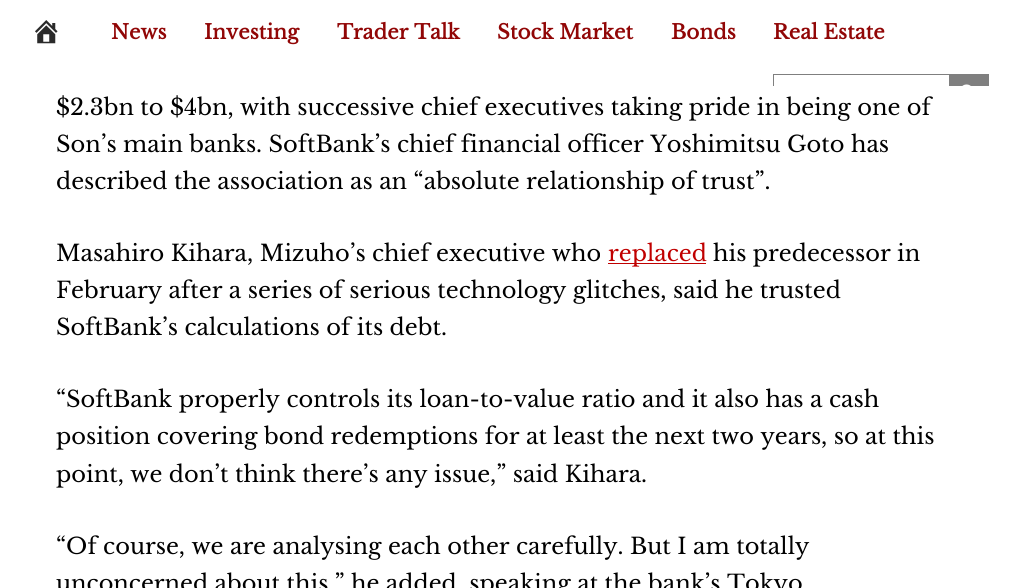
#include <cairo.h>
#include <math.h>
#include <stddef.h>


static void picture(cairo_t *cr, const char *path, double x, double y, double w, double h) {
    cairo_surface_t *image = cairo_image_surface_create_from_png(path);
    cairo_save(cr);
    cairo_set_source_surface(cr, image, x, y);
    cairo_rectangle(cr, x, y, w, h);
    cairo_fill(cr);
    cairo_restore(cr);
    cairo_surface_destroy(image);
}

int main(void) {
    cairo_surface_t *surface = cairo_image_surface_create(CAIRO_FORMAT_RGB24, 1013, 588);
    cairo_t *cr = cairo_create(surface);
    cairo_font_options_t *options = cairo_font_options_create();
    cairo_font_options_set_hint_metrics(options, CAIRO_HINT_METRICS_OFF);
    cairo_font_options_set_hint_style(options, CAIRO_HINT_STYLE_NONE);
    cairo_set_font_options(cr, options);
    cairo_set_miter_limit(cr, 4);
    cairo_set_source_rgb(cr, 1, 1, 1);
    cairo_paint(cr);
    picture(cr, "img1.png", 35, 20, 23, 24);
    cairo_select_font_face(cr, "Libre Baskerville", CAIRO_FONT_SLANT_NORMAL, CAIRO_FONT_WEIGHT_BOLD);
    cairo_set_font_size(cr, 20);
    cairo_set_source_rgb(cr, 0.569, 0.027, 0.027);
    cairo_move_to(cr, 111, 39);
    cairo_show_text(cr, "News");
    cairo_move_to(cr, 204, 39);
    cairo_show_text(cr, "Investing");
    cairo_move_to(cr, 337, 39);
    cairo_show_text(cr, "Trader Talk");
    cairo_move_to(cr, 497, 39);
    cairo_show_text(cr, "Stock Market");
    cairo_move_to(cr, 671, 39);
    cairo_show_text(cr, "Bonds");
    cairo_move_to(cr, 773, 39);
    cairo_show_text(cr, "Real Estate");
    cairo_select_font_face(cr, "Libre Baskerville", CAIRO_FONT_SLANT_NORMAL, CAIRO_FONT_WEIGHT_NORMAL);
    cairo_set_font_size(cr, 22.5);
    cairo_set_source_rgb(cr, 0, 0, 0);
    cairo_move_to(cr, 56, 115);
    cairo_show_text(cr, "$2.3bn to $4bn, with successive chief executives taking pride in being one of");
    cairo_save(cr);
    cairo_rectangle(cr, 773, 63, 222, 23);
    cairo_clip(cr);
    cairo_rectangle(cr, 773.5, 74.5, 212, 39);
    cairo_set_source_rgb(cr, 0.498, 0.498, 0.498);
    cairo_set_line_width(cr, 1);
    cairo_stroke(cr);
    cairo_restore(cr);
    cairo_set_source_rgb(cr, 0.498, 0.498, 0.498);
    cairo_rectangle(cr, 949, 74, 40, 12);
    cairo_fill(cr);
    picture(cr, "img2.png", 962, 84, 9, 2);
    cairo_set_source_rgb(cr, 0, 0, 0);
    cairo_move_to(cr, 56, 152);
    cairo_show_text(cr, "Son’s main banks. SoftBank’s chief financial officer Yoshimitsu Goto has");
    cairo_move_to(cr, 56, 189);
    cairo_show_text(cr, "described the association as an “absolute relationship of trust”.");
    cairo_move_to(cr, 56, 261);
    cairo_show_text(cr, "Masahiro Kihara, Mizuho’s chief executive who");
    cairo_set_source_rgb(cr, 0.753, 0, 0);
    cairo_rectangle(cr, 608, 263, 98, 1);
    cairo_fill(cr);
    cairo_move_to(cr, 608, 261);
    cairo_show_text(cr, "replaced");
    cairo_set_source_rgb(cr, 0, 0, 0);
    cairo_move_to(cr, 713, 261);
    cairo_show_text(cr, "his predecessor in");
    cairo_move_to(cr, 56, 298);
    cairo_show_text(cr, "February after a series of serious technology glitches, said he trusted");
    cairo_move_to(cr, 56, 335);
    cairo_show_text(cr, "SoftBank’s calculations of its debt.");
    cairo_move_to(cr, 56, 407);
    cairo_show_text(cr, "“SoftBank properly controls its loan-to-value ratio and it also has a cash");
    cairo_move_to(cr, 56, 444);
    cairo_show_text(cr, "position covering bond redemptions for at least the next two years, so at this");
    cairo_move_to(cr, 56, 482);
    cairo_show_text(cr, "point, we don’t think there’s any issue,” said Kihara.");
    cairo_move_to(cr, 56, 554);
    cairo_show_text(cr, "“Of course, we are analysing each other carefully. But I am totally");
    cairo_move_to(cr, 56, 591);
    cairo_show_text(cr, "unconcerned about this,” he added, speaking at the bank’s Tokyo");
    cairo_surface_write_to_png(surface, "page.png");
    cairo_font_options_destroy(options);
    cairo_destroy(cr);
    cairo_surface_destroy(surface);
    return 0;
}
